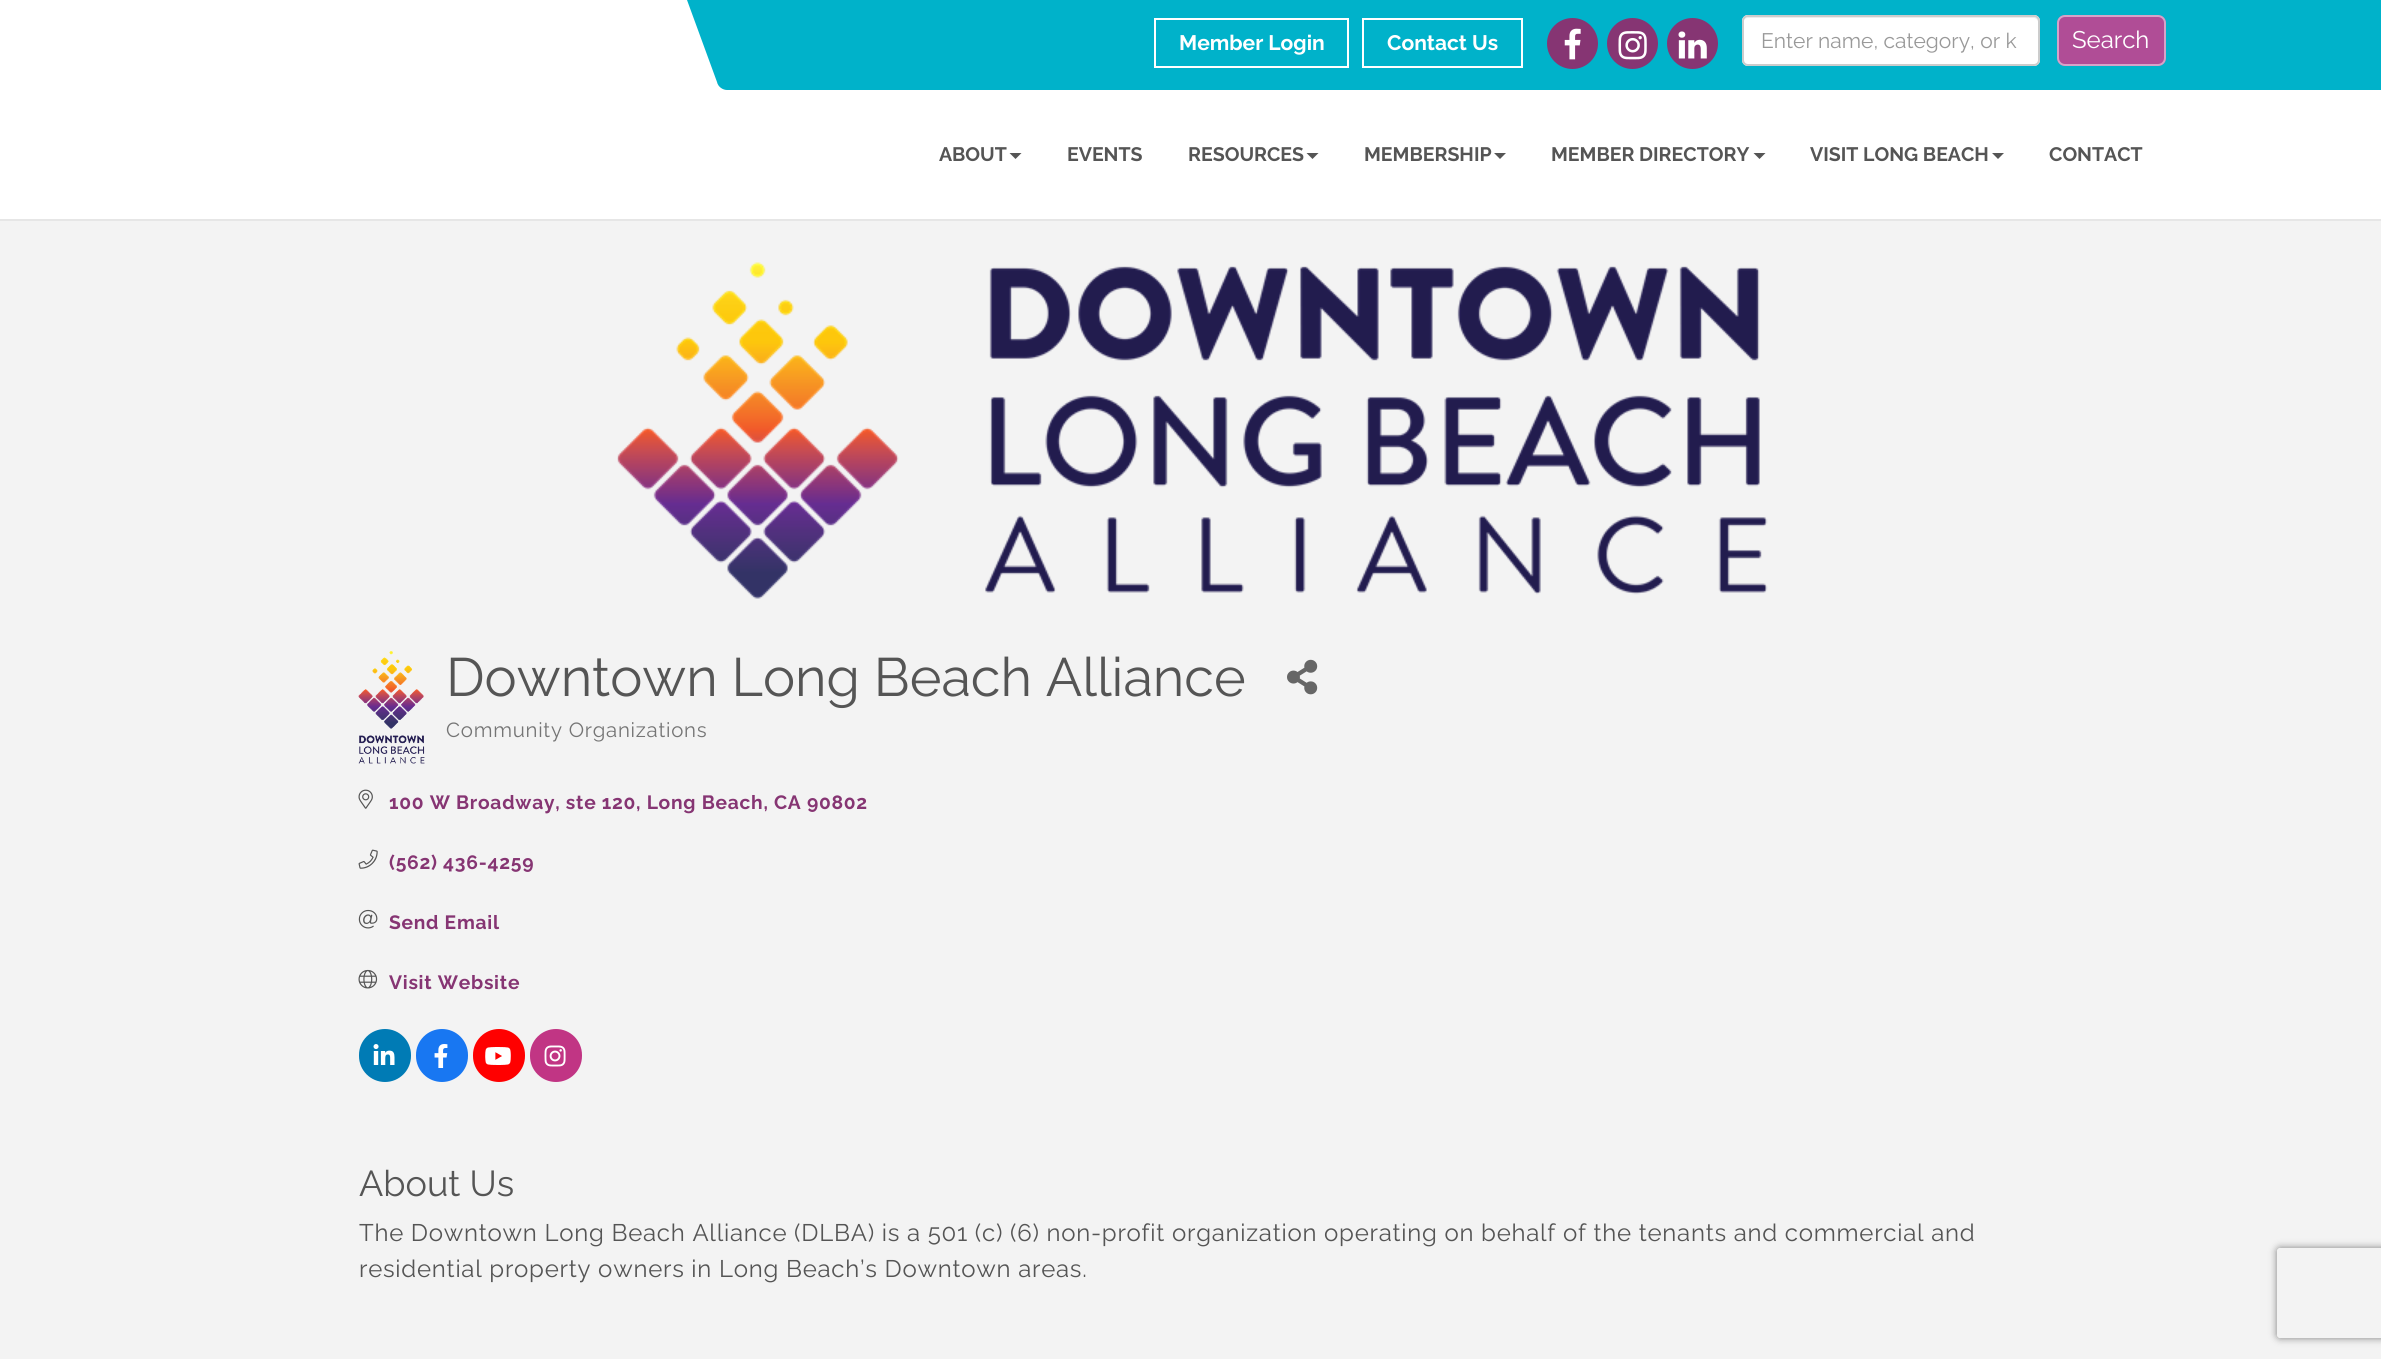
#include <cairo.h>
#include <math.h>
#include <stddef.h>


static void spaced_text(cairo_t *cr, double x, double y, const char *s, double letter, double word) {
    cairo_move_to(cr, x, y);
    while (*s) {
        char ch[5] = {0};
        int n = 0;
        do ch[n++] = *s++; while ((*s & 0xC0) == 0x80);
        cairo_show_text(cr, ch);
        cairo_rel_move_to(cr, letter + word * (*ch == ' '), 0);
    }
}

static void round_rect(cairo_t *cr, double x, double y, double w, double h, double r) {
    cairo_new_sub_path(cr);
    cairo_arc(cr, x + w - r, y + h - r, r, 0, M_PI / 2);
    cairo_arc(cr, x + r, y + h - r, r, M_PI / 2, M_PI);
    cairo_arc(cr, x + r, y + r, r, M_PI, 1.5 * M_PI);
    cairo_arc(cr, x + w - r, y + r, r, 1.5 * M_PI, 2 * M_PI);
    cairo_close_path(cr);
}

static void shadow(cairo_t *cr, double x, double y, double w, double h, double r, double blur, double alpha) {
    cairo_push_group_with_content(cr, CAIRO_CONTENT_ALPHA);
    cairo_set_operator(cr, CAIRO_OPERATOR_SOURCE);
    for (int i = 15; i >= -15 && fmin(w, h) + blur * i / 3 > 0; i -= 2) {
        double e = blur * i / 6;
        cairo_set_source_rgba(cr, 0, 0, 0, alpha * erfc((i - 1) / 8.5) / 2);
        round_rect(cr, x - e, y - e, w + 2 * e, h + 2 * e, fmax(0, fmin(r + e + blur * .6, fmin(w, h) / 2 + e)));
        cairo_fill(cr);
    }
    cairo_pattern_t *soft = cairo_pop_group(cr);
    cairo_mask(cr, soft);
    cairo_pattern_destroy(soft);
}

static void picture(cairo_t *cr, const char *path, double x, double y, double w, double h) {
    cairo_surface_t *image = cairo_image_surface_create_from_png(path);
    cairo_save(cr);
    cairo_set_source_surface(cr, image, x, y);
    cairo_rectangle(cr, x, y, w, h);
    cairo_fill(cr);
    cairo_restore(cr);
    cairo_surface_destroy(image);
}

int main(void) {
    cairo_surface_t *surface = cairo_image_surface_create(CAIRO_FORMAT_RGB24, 2381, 1359);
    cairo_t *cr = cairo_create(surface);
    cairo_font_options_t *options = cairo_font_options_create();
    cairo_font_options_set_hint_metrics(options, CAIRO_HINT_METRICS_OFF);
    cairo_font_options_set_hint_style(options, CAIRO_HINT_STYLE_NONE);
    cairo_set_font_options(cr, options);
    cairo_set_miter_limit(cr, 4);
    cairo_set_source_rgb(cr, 0.953, 0.953, 0.953);
    cairo_paint(cr);
    cairo_set_source_rgb(cr, 1, 1, 1);
    cairo_rectangle(cr, 0, 0, 2381, 219);
    cairo_fill(cr);
    cairo_set_source_rgb(cr, 0.902, 0.902, 0.902);
    cairo_rectangle(cr, 0, 219, 2381, 2);
    cairo_fill(cr);
    cairo_set_source_rgb(cr, 0, 0.698, 0.792);
    cairo_new_path(cr);
    cairo_move_to(cr, 687, 0);
    cairo_line_to(cr, 2150, 0);
    cairo_line_to(cr, 2183, 90);
    cairo_line_to(cr, 727, 90);
    cairo_curve_to(cr, 723, 90, 718, 87, 717, 82);
    cairo_close_path(cr);
    cairo_fill(cr);
    cairo_rectangle(cr, 1155, 19, 193, 48);
    cairo_set_source_rgb(cr, 1, 1, 1);
    cairo_stroke(cr);
    cairo_select_font_face(cr, "Raleway", CAIRO_FONT_SLANT_NORMAL, CAIRO_FONT_WEIGHT_BOLD);
    cairo_set_font_size(cr, 21);
    cairo_move_to(cr, 1179, 50);
    cairo_show_text(cr, "Member Login");
    cairo_rectangle(cr, 1363, 19, 159, 48);
    cairo_stroke(cr);
    cairo_move_to(cr, 1387, 50);
    cairo_show_text(cr, "Contact Us");
    cairo_set_source_rgb(cr, 0.525, 0.208, 0.451);
    cairo_new_path(cr);
    cairo_arc(cr, 1572.5, 43.5, 24.5, 0, 2 * M_PI);
    cairo_fill_preserve(cr);
    cairo_stroke(cr);
    picture(cr, "img1.png", 1564, 28, 17, 32);
    cairo_arc(cr, 1632.5, 43.5, 24.5, 0, 2 * M_PI);
    cairo_fill_preserve(cr);
    cairo_stroke(cr);
    picture(cr, "img2.png", 1618, 31, 29, 29);
    cairo_arc(cr, 1692.5, 43.5, 24.5, 0, 2 * M_PI);
    cairo_fill_preserve(cr);
    cairo_stroke(cr);
    picture(cr, "img3.png", 1678, 31, 29, 28);
    cairo_set_source_rgb(cr, 1, 1, 1);
    round_rect(cr, 1742, 15, 298, 51, 6);
    cairo_fill(cr);
    cairo_set_source_rgb(cr, 0.925, 0.925, 0.925);
    cairo_new_path(cr);
    cairo_move_to(cr, 1748, 18);
    cairo_line_to(cr, 2034, 18);
    cairo_curve_to(cr, 2036, 18, 2038, 20, 2038, 22);
    cairo_line_to(cr, 2038, 63);
    cairo_curve_to(cr, 2039, 62, 2039, 61, 2039, 60);
    cairo_line_to(cr, 2039, 22);
    cairo_curve_to(cr, 2039, 19, 2037, 17, 2034, 17);
    cairo_line_to(cr, 1748, 17);
    cairo_curve_to(cr, 1745, 17, 1743, 19, 1743, 22);
    cairo_curve_to(cr, 1743, 20, 1745, 18, 1748, 18);
    cairo_close_path(cr);
    cairo_fill(cr);
    round_rect(cr, 1743, 16, 296, 49, 5);
    cairo_set_source_rgb(cr, 0.8, 0.8, 0.8);
    cairo_stroke(cr);
    cairo_select_font_face(cr, "Raleway", CAIRO_FONT_SLANT_NORMAL, CAIRO_FONT_WEIGHT_NORMAL);
    cairo_set_source_rgb(cr, 0.6, 0.6, 0.6);
    cairo_move_to(cr, 1761, 48);
    cairo_show_text(cr, "Enter name, category, or k");
    cairo_set_source_rgb(cr, 0, 0.698, 0.792);
    cairo_new_path(cr);
    cairo_move_to(cr, 2148, 0);
    cairo_line_to(cr, 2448, 0);
    cairo_line_to(cr, 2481, 90);
    cairo_line_to(cr, 2181, 90);
    cairo_close_path(cr);
    cairo_fill(cr);
    cairo_set_source_rgb(cr, 0.69, 0.302, 0.588);
    round_rect(cr, 2057, 15, 109, 51, 8);
    cairo_fill(cr);
    round_rect(cr, 2058, 16, 107, 49, 7);
    cairo_set_source_rgba(cr, 1, 1, 1, 0.48);
    cairo_stroke(cr);
    cairo_set_font_size(cr, 24);
    cairo_set_source_rgb(cr, 1, 1, 1);
    cairo_move_to(cr, 2072, 48);
    cairo_show_text(cr, "Search");
    cairo_select_font_face(cr, "Raleway", CAIRO_FONT_SLANT_NORMAL, CAIRO_FONT_WEIGHT_BOLD);
    cairo_set_font_size(cr, 19.5);
    cairo_set_source_rgb(cr, 0.333, 0.333, 0.333);
    cairo_move_to(cr, 939, 161);
    cairo_show_text(cr, "ABOUT");
    cairo_new_path(cr);
    cairo_move_to(cr, 1009.5, 153);
    cairo_line_to(cr, 1021.5, 153);
    cairo_line_to(cr, 1015.5, 159);
    cairo_close_path(cr);
    cairo_fill(cr);
    cairo_move_to(cr, 1067, 161);
    cairo_show_text(cr, "EVENTS");
    cairo_move_to(cr, 1188, 161);
    cairo_show_text(cr, "RESOURCES");
    cairo_new_path(cr);
    cairo_move_to(cr, 1306.5, 153);
    cairo_line_to(cr, 1318.5, 153);
    cairo_line_to(cr, 1312.5, 159);
    cairo_close_path(cr);
    cairo_fill(cr);
    cairo_move_to(cr, 1364, 161);
    cairo_show_text(cr, "MEMBERSHIP");
    cairo_new_path(cr);
    cairo_move_to(cr, 1494, 153);
    cairo_line_to(cr, 1506, 153);
    cairo_line_to(cr, 1500, 159);
    cairo_close_path(cr);
    cairo_fill(cr);
    cairo_move_to(cr, 1551, 161);
    cairo_show_text(cr, "MEMBER DIRECTORY");
    cairo_new_path(cr);
    cairo_move_to(cr, 1753.5, 153);
    cairo_line_to(cr, 1765.5, 153);
    cairo_line_to(cr, 1759.5, 159);
    cairo_close_path(cr);
    cairo_fill(cr);
    cairo_move_to(cr, 1810, 161);
    cairo_show_text(cr, "VISIT LONG BEACH");
    cairo_new_path(cr);
    cairo_move_to(cr, 1992, 153);
    cairo_line_to(cr, 2004, 153);
    cairo_line_to(cr, 1998, 159);
    cairo_close_path(cr);
    cairo_fill(cr);
    cairo_move_to(cr, 2049, 161);
    cairo_show_text(cr, "CONTACT");
    picture(cr, "img4.png", 617, 262, 1151, 337);
    picture(cr, "img5.png", 358, 651, 67, 113);
    cairo_select_font_face(cr, "Raleway", CAIRO_FONT_SLANT_NORMAL, CAIRO_FONT_WEIGHT_NORMAL);
    cairo_set_font_size(cr, 54);
    cairo_move_to(cr, 446, 696);
    cairo_show_text(cr, "Downtown Long Beach Alliance");
    picture(cr, "img6.png", 1287, 659, 31, 36);
    cairo_set_font_size(cr, 20.4);
    cairo_set_source_rgb(cr, 0.459, 0.459, 0.459);
    spaced_text(cr, 446, 737, "Community Organizations", 0.75, 0);
    picture(cr, "img7.png", 358, 789, 15, 20);
    cairo_select_font_face(cr, "Raleway", CAIRO_FONT_SLANT_NORMAL, CAIRO_FONT_WEIGHT_BOLD);
    cairo_set_font_size(cr, 19.2);
    cairo_set_source_rgb(cr, 0.525, 0.208, 0.451);
    spaced_text(cr, 389, 809, "100 W Broadway, ste 120, Long Beach, CA 90802", 0.75, 0);
    picture(cr, "img8.png", 358, 849, 20, 20);
    spaced_text(cr, 389, 869, "(562) 436-4259", 0.75, 0);
    picture(cr, "img9.png", 358, 909, 20, 20);
    spaced_text(cr, 389, 929, "Send Email", 0.75, 0);
    picture(cr, "img10.png", 358, 969, 20, 20);
    spaced_text(cr, 389, 989, "Visit Website", 0.75, 0);
    cairo_set_source_rgb(cr, 0, 0.482, 0.71);
    round_rect(cr, 359, 1029, 52, 53, 26);
    cairo_fill(cr);
    picture(cr, "img11.png", 373, 1044, 22, 21);
    cairo_set_source_rgb(cr, 0.094, 0.467, 0.949);
    round_rect(cr, 416, 1029, 52, 53, 26);
    cairo_fill(cr);
    picture(cr, "img12.png", 434, 1044, 14, 24);
    cairo_set_source_rgb(cr, 1, 0, 0);
    round_rect(cr, 473, 1029, 52, 53, 26);
    cairo_fill(cr);
    picture(cr, "img13.png", 485, 1047, 26, 18);
    cairo_set_source_rgb(cr, 0.757, 0.208, 0.518);
    round_rect(cr, 530, 1029, 52, 53, 26);
    cairo_fill(cr);
    picture(cr, "img14.png", 544, 1045, 22, 22);
    cairo_select_font_face(cr, "Raleway", CAIRO_FONT_SLANT_NORMAL, CAIRO_FONT_WEIGHT_NORMAL);
    cairo_set_font_size(cr, 36);
    cairo_set_source_rgb(cr, 0.333, 0.333, 0.333);
    cairo_move_to(cr, 359, 1196);
    cairo_show_text(cr, "About Us");
    cairo_set_font_size(cr, 24);
    spaced_text(cr, 359, 1241, "The Downtown Long Beach Alliance (DLBA) is a 501 (c) (6) non-profit organization operating on behalf of the tenants and commercial and", 0.75, 0);
    spaced_text(cr, 359, 1277, "residential property owners in Long Beach’s Downtown areas.", 0.75, 0);
    cairo_save(cr);
    cairo_set_fill_rule(cr, CAIRO_FILL_RULE_EVEN_ODD);
    cairo_new_path(cr);
    cairo_move_to(cr, 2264, 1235);
    cairo_line_to(cr, 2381, 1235);
    cairo_line_to(cr, 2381, 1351);
    cairo_line_to(cr, 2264, 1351);
    cairo_close_path(cr);
    cairo_move_to(cr, 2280, 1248);
    cairo_line_to(cr, 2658, 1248);
    cairo_curve_to(cr, 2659.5, 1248, 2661, 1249.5, 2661, 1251);
    cairo_line_to(cr, 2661, 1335);
    cairo_curve_to(cr, 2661, 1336.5, 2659.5, 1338, 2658, 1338);
    cairo_line_to(cr, 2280, 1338);
    cairo_curve_to(cr, 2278.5, 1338, 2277, 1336.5, 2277, 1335);
    cairo_line_to(cr, 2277, 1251);
    cairo_curve_to(cr, 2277, 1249.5, 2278.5, 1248, 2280, 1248);
    cairo_close_path(cr);
    cairo_clip(cr);
    cairo_set_source_rgb(cr, 0.502, 0.502, 0.502);
    shadow(cr, 2277, 1248, 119, 90, 3, 4, 1);
    cairo_restore(cr);
    cairo_surface_write_to_png(surface, "page.png");
    cairo_font_options_destroy(options);
    cairo_destroy(cr);
    cairo_surface_destroy(surface);
    return 0;
}
